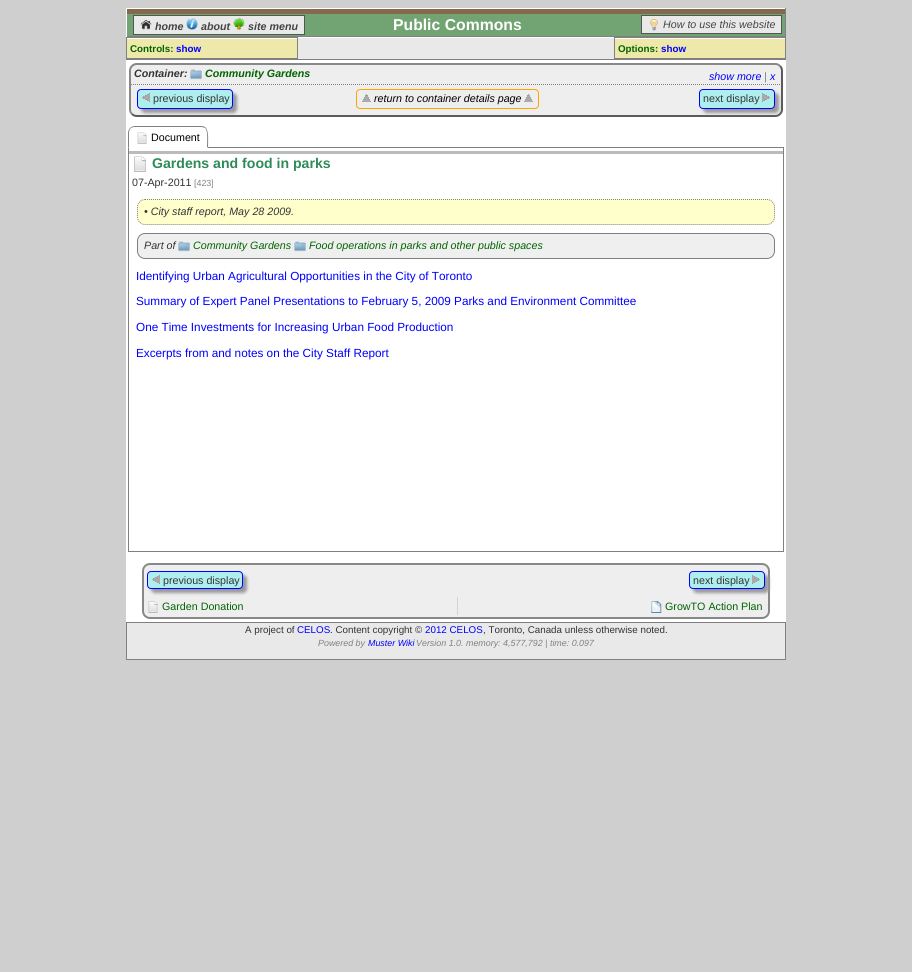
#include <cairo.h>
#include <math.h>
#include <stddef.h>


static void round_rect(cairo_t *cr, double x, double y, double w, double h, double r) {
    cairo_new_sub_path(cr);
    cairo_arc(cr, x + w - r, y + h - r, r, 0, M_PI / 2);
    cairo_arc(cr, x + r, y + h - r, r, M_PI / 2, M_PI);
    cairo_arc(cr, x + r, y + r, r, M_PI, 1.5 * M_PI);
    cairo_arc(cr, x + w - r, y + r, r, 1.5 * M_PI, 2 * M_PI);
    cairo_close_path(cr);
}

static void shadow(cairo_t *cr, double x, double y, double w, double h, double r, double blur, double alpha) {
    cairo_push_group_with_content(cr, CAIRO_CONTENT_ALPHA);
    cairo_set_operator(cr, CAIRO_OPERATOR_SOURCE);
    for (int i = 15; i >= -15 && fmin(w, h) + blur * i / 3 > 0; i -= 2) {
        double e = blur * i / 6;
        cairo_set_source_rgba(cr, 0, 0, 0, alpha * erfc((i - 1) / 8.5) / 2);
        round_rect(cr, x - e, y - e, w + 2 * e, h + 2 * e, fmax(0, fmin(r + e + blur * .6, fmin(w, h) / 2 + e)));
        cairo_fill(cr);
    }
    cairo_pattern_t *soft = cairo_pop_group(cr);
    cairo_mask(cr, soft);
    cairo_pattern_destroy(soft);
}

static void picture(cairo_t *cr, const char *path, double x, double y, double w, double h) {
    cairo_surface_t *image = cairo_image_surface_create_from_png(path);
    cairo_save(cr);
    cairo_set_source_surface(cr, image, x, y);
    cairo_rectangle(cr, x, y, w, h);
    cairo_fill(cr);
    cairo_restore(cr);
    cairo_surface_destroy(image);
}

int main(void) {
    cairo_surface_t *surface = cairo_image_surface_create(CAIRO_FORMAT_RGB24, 912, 972);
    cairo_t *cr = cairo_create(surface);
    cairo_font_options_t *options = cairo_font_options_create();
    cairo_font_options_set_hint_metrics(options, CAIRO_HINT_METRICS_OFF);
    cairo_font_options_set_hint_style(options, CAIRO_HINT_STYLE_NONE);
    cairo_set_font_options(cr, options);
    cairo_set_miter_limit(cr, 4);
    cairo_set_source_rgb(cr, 0.812, 0.812, 0.812);
    cairo_paint(cr);
    cairo_set_source_rgb(cr, 1, 1, 1);
    cairo_rectangle(cr, 126, 8, 660, 1);
    cairo_fill(cr);
    cairo_set_source_rgb(cr, 0.502, 0.502, 0.502);
    cairo_rectangle(cr, 785, 8, 1, 29);
    cairo_fill(cr);
    cairo_rectangle(cr, 126, 36, 660, 1);
    cairo_fill(cr);
    cairo_set_source_rgb(cr, 1, 1, 1);
    cairo_rectangle(cr, 126, 8, 1, 29);
    cairo_fill(cr);
    cairo_set_source_rgb(cr, 0.447, 0.639, 0.447);
    cairo_rectangle(cr, 127, 14, 658, 22);
    cairo_fill(cr);
    cairo_set_source_rgb(cr, 0.914, 0.914, 0.914);
    cairo_rectangle(cr, 133.5, 15.5, 171, 19);
    cairo_fill_preserve(cr);
    cairo_set_source_rgb(cr, 0.333, 0.333, 0.333);
    cairo_set_line_width(cr, 1);
    cairo_stroke(cr);
    picture(cr, "img1.png", 140, 20, 12, 10);
    cairo_select_font_face(cr, "Liberation Sans", CAIRO_FONT_SLANT_ITALIC, CAIRO_FONT_WEIGHT_BOLD);
    cairo_set_font_size(cr, 10.7);
    cairo_set_source_rgb(cr, 0.267, 0.267, 0.267);
    cairo_move_to(cr, 155, 30);
    cairo_show_text(cr, "home");
    picture(cr, "img2.png", 186, 18, 12, 12);
    cairo_move_to(cr, 201, 30);
    cairo_show_text(cr, "about");
    picture(cr, "img3.png", 233, 18, 12, 12);
    cairo_move_to(cr, 248, 30);
    cairo_show_text(cr, "site menu");
    cairo_set_source_rgb(cr, 0.522, 0.412, 0.306);
    cairo_rectangle(cr, 127, 9, 658, 5);
    cairo_fill(cr);
    cairo_select_font_face(cr, "Liberation Sans", CAIRO_FONT_SLANT_NORMAL, CAIRO_FONT_WEIGHT_BOLD);
    cairo_set_font_size(cr, 15.75);
    cairo_set_source_rgb(cr, 1, 1, 1);
    cairo_move_to(cr, 393, 30);
    cairo_show_text(cr, "Public Commons");
    cairo_set_source_rgb(cr, 0.914, 0.914, 0.914);
    cairo_rectangle(cr, 641.5, 15.5, 140, 18);
    cairo_fill_preserve(cr);
    cairo_set_source_rgb(cr, 0.333, 0.333, 0.333);
    cairo_stroke(cr);
    picture(cr, "img4.png", 650, 19, 8, 12);
    cairo_select_font_face(cr, "Liberation Sans", CAIRO_FONT_SLANT_ITALIC, CAIRO_FONT_WEIGHT_NORMAL);
    cairo_set_font_size(cr, 10.7);
    cairo_set_source_rgb(cr, 0.267, 0.267, 0.267);
    cairo_move_to(cr, 663, 28);
    cairo_show_text(cr, "How to use this website");
    cairo_set_source_rgb(cr, 0.914, 0.914, 0.914);
    cairo_rectangle(cr, 298, 38, 316, 21);
    cairo_fill(cr);
    cairo_set_source_rgb(cr, 0.933, 0.91, 0.667);
    cairo_rectangle(cr, 127, 39, 170, 19);
    cairo_fill(cr);
    cairo_rectangle(cr, 126.5, 37.5, 171, 21);
    cairo_set_source_rgb(cr, 0.502, 0.502, 0.502);
    cairo_stroke(cr);
    cairo_set_source_rgb(cr, 1, 1, 1);
    cairo_rectangle(cr, 127, 38, 170, 1);
    cairo_fill(cr);
    cairo_select_font_face(cr, "Liberation Sans", CAIRO_FONT_SLANT_NORMAL, CAIRO_FONT_WEIGHT_BOLD);
    cairo_set_font_size(cr, 9.8);
    cairo_set_source_rgb(cr, 0, 0.392, 0);
    cairo_move_to(cr, 130, 52);
    cairo_show_text(cr, "Controls:");
    cairo_set_source_rgb(cr, 0, 0, 1);
    cairo_move_to(cr, 176, 52);
    cairo_show_text(cr, "show");
    cairo_set_source_rgb(cr, 0.933, 0.91, 0.667);
    cairo_rectangle(cr, 615, 39, 170, 19);
    cairo_fill(cr);
    cairo_rectangle(cr, 614.5, 37.5, 171, 21);
    cairo_set_source_rgb(cr, 0.502, 0.502, 0.502);
    cairo_stroke(cr);
    cairo_set_source_rgb(cr, 1, 1, 1);
    cairo_rectangle(cr, 615, 38, 170, 1);
    cairo_fill(cr);
    cairo_set_source_rgb(cr, 0, 0.392, 0);
    cairo_move_to(cr, 618, 52);
    cairo_show_text(cr, "Options:");
    cairo_set_source_rgb(cr, 0, 0, 1);
    cairo_move_to(cr, 661, 52);
    cairo_show_text(cr, "show");
    cairo_set_source_rgb(cr, 1, 1, 1);
    cairo_rectangle(cr, 298, 37, 316, 1);
    cairo_fill(cr);
    cairo_set_source_rgb(cr, 0.502, 0.502, 0.502);
    cairo_rectangle(cr, 126, 59, 660, 1);
    cairo_fill(cr);
    cairo_set_source_rgb(cr, 1, 1, 1);
    cairo_rectangle(cr, 126, 60, 660, 562);
    cairo_fill(cr);
    cairo_set_source_rgb(cr, 0.933, 0.933, 0.933);
    round_rect(cr, 129, 63, 654, 54, 8);
    cairo_fill(cr);
    cairo_new_path(cr);
    cairo_move_to(cr, 780, 66);
    cairo_curve_to(cr, 781.5, 67.5, 782, 69, 782, 71);
    cairo_line_to(cr, 782, 109);
    cairo_curve_to(cr, 782, 111, 781.5, 112.5, 780, 114);
    cairo_curve_to(cr, 778.5, 115.5, 777, 116, 775, 116);
    cairo_line_to(cr, 137, 116);
    cairo_curve_to(cr, 135, 116, 133.5, 115.5, 132, 114);
    cairo_set_source_rgb(cr, 0.357, 0.357, 0.357);
    cairo_set_line_width(cr, 2);
    cairo_stroke(cr);
    cairo_new_path(cr);
    cairo_move_to(cr, 132, 114);
    cairo_curve_to(cr, 130.5, 112.5, 130, 111, 130, 109);
    cairo_line_to(cr, 130, 71);
    cairo_curve_to(cr, 130, 69, 130.5, 67.5, 132, 66);
    cairo_curve_to(cr, 133.5, 64.5, 135, 64, 137, 64);
    cairo_line_to(cr, 775, 64);
    cairo_curve_to(cr, 777, 64, 778.5, 64.5, 780, 66);
    cairo_set_source_rgb(cr, 0.533, 0.533, 0.533);
    cairo_stroke(cr);
    cairo_select_font_face(cr, "Liberation Sans", CAIRO_FONT_SLANT_ITALIC, CAIRO_FONT_WEIGHT_BOLD);
    cairo_set_font_size(cr, 10.7);
    cairo_set_source_rgb(cr, 0.2, 0.2, 0.2);
    cairo_move_to(cr, 134, 77);
    cairo_show_text(cr, "Container:");
    picture(cr, "img5.png", 190, 69, 12, 11);
    cairo_set_source_rgb(cr, 0, 0.392, 0);
    cairo_move_to(cr, 205, 77);
    cairo_show_text(cr, "Community Gardens");
    cairo_select_font_face(cr, "Liberation Sans", CAIRO_FONT_SLANT_ITALIC, CAIRO_FONT_WEIGHT_NORMAL);
    cairo_set_source_rgb(cr, 0, 0, 1);
    cairo_move_to(cr, 709, 80);
    cairo_show_text(cr, "show more");
    cairo_set_source_rgb(cr, 0.502, 0.502, 0.502);
    cairo_move_to(cr, 764, 80);
    cairo_show_text(cr, "|");
    cairo_set_source_rgb(cr, 0, 0, 1);
    cairo_move_to(cr, 770, 80);
    cairo_show_text(cr, "x");
    cairo_new_path(cr);
    cairo_move_to(cr, 131, 84.5);
    cairo_line_to(cr, 781, 84.5);
    cairo_set_source_rgb(cr, 0.502, 0.502, 0.502);
    cairo_set_line_width(cr, 1);
    cairo_set_dash(cr, (double[]){1, 1}, 2, 0);
    cairo_stroke(cr);
    cairo_set_source_rgb(cr, 0.6, 0.6, 0.6);
    shadow(cr, 141, 93, 96, 20, 4, 1.5, 1);
    cairo_set_source_rgb(cr, 0.686, 0.933, 0.933);
    round_rect(cr, 137.5, 89.5, 95, 19, 3.5);
    cairo_fill_preserve(cr);
    cairo_set_source_rgb(cr, 0, 0, 1);
    cairo_set_dash(cr, NULL, 0, 0);
    cairo_stroke(cr);
    picture(cr, "img6.png", 142, 93, 8, 9);
    cairo_select_font_face(cr, "Liberation Sans", CAIRO_FONT_SLANT_NORMAL, CAIRO_FONT_WEIGHT_NORMAL);
    cairo_set_source_rgb(cr, 0.2, 0.2, 0.2);
    cairo_move_to(cr, 153, 102);
    cairo_show_text(cr, "previous display");
    cairo_set_source_rgb(cr, 0.6, 0.6, 0.6);
    shadow(cr, 703, 93, 76, 20, 4, 1.5, 1);
    cairo_set_source_rgb(cr, 0.686, 0.933, 0.933);
    round_rect(cr, 699.5, 89.5, 75, 19, 3.5);
    cairo_fill_preserve(cr);
    cairo_set_source_rgb(cr, 0, 0, 1);
    cairo_stroke(cr);
    cairo_set_source_rgb(cr, 0.2, 0.2, 0.2);
    cairo_move_to(cr, 703, 102);
    cairo_show_text(cr, "next display");
    picture(cr, "img7.png", 762, 93, 8, 9);
    round_rect(cr, 356.5, 89.5, 182, 19, 3.5);
    cairo_set_source_rgb(cr, 1, 0.647, 0);
    cairo_stroke(cr);
    picture(cr, "img8.png", 362, 94, 9, 8);
    cairo_select_font_face(cr, "Liberation Sans", CAIRO_FONT_SLANT_ITALIC, CAIRO_FONT_WEIGHT_NORMAL);
    cairo_set_source_rgb(cr, 0, 0, 0);
    cairo_move_to(cr, 374, 102);
    cairo_show_text(cr, "return to container details page");
    picture(cr, "img8.png", 524, 94, 9, 8);
    cairo_set_source_rgb(cr, 0.502, 0.502, 0.502);
    cairo_new_path(cr);
    cairo_move_to(cr, 135, 126);
    cairo_curve_to(cr, 133, 126, 131, 127, 130, 128);
    cairo_line_to(cr, 130.5, 128.5);
    cairo_curve_to(cr, 132, 127, 134, 127, 136, 127);
    cairo_line_to(cr, 136, 126);
    cairo_close_path(cr);
    cairo_fill(cr);
    cairo_rectangle(cr, 128.5, 147.5, 655, 404);
    cairo_stroke(cr);
    cairo_set_source_rgb(cr, 1, 1, 1);
    cairo_new_path(cr);
    cairo_move_to(cr, 136, 148);
    cairo_line_to(cr, 136, 147);
    cairo_line_to(cr, 129, 147);
    cairo_line_to(cr, 128, 148);
    cairo_close_path(cr);
    cairo_fill(cr);
    cairo_set_source_rgb(cr, 0.502, 0.502, 0.502);
    cairo_new_path(cr);
    cairo_move_to(cr, 128, 148);
    cairo_line_to(cr, 129, 147);
    cairo_line_to(cr, 129, 133);
    cairo_curve_to(cr, 129, 131, 129.5, 130, 130.5, 128.5);
    cairo_line_to(cr, 130, 128);
    cairo_curve_to(cr, 129, 129, 128, 131, 128, 133);
    cairo_close_path(cr);
    cairo_fill(cr);
    cairo_rectangle(cr, 136, 126, 64, 1);
    cairo_fill(cr);
    cairo_set_source_rgb(cr, 1, 1, 1);
    cairo_rectangle(cr, 136, 147, 64, 1);
    cairo_fill(cr);
    picture(cr, "img9.png", 137, 132, 10, 12);
    cairo_select_font_face(cr, "Liberation Sans", CAIRO_FONT_SLANT_NORMAL, CAIRO_FONT_WEIGHT_NORMAL);
    cairo_set_source_rgb(cr, 0, 0, 0);
    cairo_move_to(cr, 151, 141);
    cairo_show_text(cr, "Document");
    cairo_set_source_rgb(cr, 0.502, 0.502, 0.502);
    cairo_new_path(cr);
    cairo_move_to(cr, 200, 126);
    cairo_line_to(cr, 200, 127);
    cairo_curve_to(cr, 202.5, 127, 204.5, 127.5, 205.5, 128.5);
    cairo_line_to(cr, 206, 128);
    cairo_curve_to(cr, 205, 126.5, 203, 126, 200, 126);
    cairo_close_path(cr);
    cairo_fill(cr);
    cairo_new_path(cr);
    cairo_move_to(cr, 207, 147);
    cairo_curve_to(cr, 207, 144, 208, 131, 205.5, 128.5);
    cairo_line_to(cr, 206, 128);
    cairo_curve_to(cr, 209, 131.5, 208, 143.5, 208, 148);
    cairo_close_path(cr);
    cairo_fill(cr);
    cairo_set_source_rgb(cr, 1, 1, 1);
    cairo_new_path(cr);
    cairo_move_to(cr, 208, 148);
    cairo_line_to(cr, 207, 147);
    cairo_line_to(cr, 200, 147);
    cairo_line_to(cr, 200, 148);
    cairo_close_path(cr);
    cairo_fill(cr);
    cairo_set_source_rgb(cr, 0.733, 0.733, 0.733);
    cairo_rectangle(cr, 129, 151, 654, 3);
    cairo_fill(cr);
    picture(cr, "img10.png", 134, 156, 12, 16);
    cairo_select_font_face(cr, "Liberation Sans", CAIRO_FONT_SLANT_NORMAL, CAIRO_FONT_WEIGHT_BOLD);
    cairo_set_font_size(cr, 14.1);
    cairo_set_source_rgb(cr, 0.18, 0.545, 0.341);
    cairo_move_to(cr, 152, 168);
    cairo_show_text(cr, "Gardens and food in parks");
    cairo_select_font_face(cr, "Liberation Sans", CAIRO_FONT_SLANT_NORMAL, CAIRO_FONT_WEIGHT_NORMAL);
    cairo_set_font_size(cr, 10.7);
    cairo_set_source_rgb(cr, 0.2, 0.2, 0.2);
    cairo_move_to(cr, 132, 186);
    cairo_show_text(cr, "07-Apr-2011");
    cairo_set_font_size(cr, 8.9);
    cairo_set_source_rgb(cr, 0.502, 0.502, 0.502);
    cairo_move_to(cr, 194, 186);
    cairo_show_text(cr, "[423]");
    cairo_set_source_rgb(cr, 1, 1, 0.8);
    round_rect(cr, 137, 199, 638, 26, 8);
    cairo_fill(cr);
    cairo_new_path(cr);
    cairo_move_to(cr, 145, 199.5);
    cairo_line_to(cr, 767, 199.5);
    cairo_curve_to(cr, 771, 199.5, 774.5, 203, 774.5, 207);
    cairo_line_to(cr, 774.5, 217);
    cairo_curve_to(cr, 774.5, 221, 771, 224.5, 767, 224.5);
    cairo_line_to(cr, 145, 224.5);
    cairo_curve_to(cr, 141, 224.5, 137.5, 221, 137.5, 217);
    cairo_line_to(cr, 137.5, 207);
    cairo_curve_to(cr, 137.5, 203, 141, 199.5, 145, 199.5);
    cairo_close_path(cr);
    cairo_set_source_rgb(cr, 0.502, 0.502, 0.502);
    cairo_set_dash(cr, (double[]){1, 1}, 2, 0);
    cairo_stroke(cr);
    cairo_select_font_face(cr, "Liberation Sans", CAIRO_FONT_SLANT_ITALIC, CAIRO_FONT_WEIGHT_NORMAL);
    cairo_set_font_size(cr, 10.7);
    cairo_set_source_rgb(cr, 0.2, 0.2, 0.2);
    cairo_move_to(cr, 144, 215);
    cairo_show_text(cr, "• City staff report, May 28 2009.");
    cairo_set_source_rgb(cr, 0.937, 0.937, 0.937);
    round_rect(cr, 137.5, 233.5, 637, 25, 7.5);
    cairo_fill_preserve(cr);
    cairo_set_source_rgb(cr, 0.502, 0.502, 0.502);
    cairo_set_dash(cr, NULL, 0, 0);
    cairo_stroke(cr);
    cairo_set_source_rgb(cr, 0.2, 0.2, 0.2);
    cairo_move_to(cr, 144, 249);
    cairo_show_text(cr, "Part of");
    picture(cr, "img11.png", 178, 241, 12, 11);
    cairo_set_source_rgb(cr, 0, 0.392, 0);
    cairo_move_to(cr, 193, 249);
    cairo_show_text(cr, "Community Gardens");
    picture(cr, "img11.png", 294, 241, 12, 11);
    cairo_move_to(cr, 309, 249);
    cairo_show_text(cr, "Food operations in parks and other public spaces");
    cairo_select_font_face(cr, "Liberation Sans", CAIRO_FONT_SLANT_NORMAL, CAIRO_FONT_WEIGHT_NORMAL);
    cairo_set_font_size(cr, 11.75);
    cairo_set_source_rgb(cr, 0, 0, 1);
    cairo_move_to(cr, 136, 280);
    cairo_show_text(cr, "Identifying Urban Agricultural Opportunities in the City of Toronto");
    cairo_move_to(cr, 136, 305);
    cairo_show_text(cr, "Summary of Expert Panel Presentations to February 5, 2009 Parks and Environment Committee");
    cairo_move_to(cr, 136, 331);
    cairo_show_text(cr, "One Time Investments for Increasing Urban Food Production");
    cairo_move_to(cr, 136, 357);
    cairo_show_text(cr, "Excerpts from and notes on the City Staff Report");
    cairo_set_source_rgb(cr, 0.933, 0.933, 0.933);
    round_rect(cr, 143, 564, 626, 54, 7);
    cairo_fill_preserve(cr);
    cairo_set_source_rgb(cr, 0.533, 0.533, 0.533);
    cairo_set_line_width(cr, 2);
    cairo_stroke(cr);
    cairo_set_source_rgb(cr, 0.6, 0.6, 0.6);
    shadow(cr, 151, 575, 96, 18, 4, 1.5, 1);
    cairo_set_source_rgb(cr, 0.686, 0.933, 0.933);
    round_rect(cr, 147.5, 571.5, 95, 17, 3.5);
    cairo_fill_preserve(cr);
    cairo_set_source_rgb(cr, 0, 0, 1);
    cairo_set_line_width(cr, 1);
    cairo_stroke(cr);
    picture(cr, "img6.png", 152, 575, 8, 9);
    cairo_set_font_size(cr, 10.7);
    cairo_set_source_rgb(cr, 0.2, 0.2, 0.2);
    cairo_move_to(cr, 163, 584);
    cairo_show_text(cr, "previous display");
    cairo_set_source_rgb(cr, 0.6, 0.6, 0.6);
    shadow(cr, 693, 575, 76, 18, 4, 1.5, 1);
    cairo_set_source_rgb(cr, 0.686, 0.933, 0.933);
    round_rect(cr, 689.5, 571.5, 75, 17, 3.5);
    cairo_fill_preserve(cr);
    cairo_set_source_rgb(cr, 0, 0, 1);
    cairo_stroke(cr);
    cairo_set_source_rgb(cr, 0.2, 0.2, 0.2);
    cairo_move_to(cr, 693, 584);
    cairo_show_text(cr, "next display");
    picture(cr, "img7.png", 752, 575, 8, 9);
    picture(cr, "img12.png", 148, 601, 10, 12);
    cairo_set_source_rgb(cr, 0, 0.392, 0);
    cairo_move_to(cr, 162, 610);
    cairo_show_text(cr, "Garden Donation");
    cairo_set_source_rgb(cr, 0.827, 0.827, 0.827);
    cairo_rectangle(cr, 457, 597, 1, 18);
    cairo_fill(cr);
    picture(cr, "img13.png", 651, 601, 11, 12);
    cairo_set_source_rgb(cr, 0, 0.392, 0);
    cairo_move_to(cr, 665, 610);
    cairo_show_text(cr, "GrowTO Action Plan");
    cairo_set_source_rgb(cr, 0.914, 0.914, 0.914);
    cairo_rectangle(cr, 126.5, 622.5, 659, 37);
    cairo_fill_preserve(cr);
    cairo_set_source_rgb(cr, 0.502, 0.502, 0.502);
    cairo_stroke(cr);
    cairo_set_font_size(cr, 9.8);
    cairo_set_source_rgb(cr, 0.2, 0.2, 0.2);
    cairo_move_to(cr, 245, 633);
    cairo_show_text(cr, "A project of");
    cairo_set_source_rgb(cr, 0, 0, 1);
    cairo_move_to(cr, 297, 633);
    cairo_show_text(cr, "CELOS");
    cairo_set_source_rgb(cr, 0.2, 0.2, 0.2);
    cairo_move_to(cr, 330, 633);
    cairo_show_text(cr, ". Content copyright ©");
    cairo_set_source_rgb(cr, 0, 0, 1);
    cairo_move_to(cr, 425, 633);
    cairo_show_text(cr, "2012 CELOS");
    cairo_set_source_rgb(cr, 0.2, 0.2, 0.2);
    cairo_move_to(cr, 483, 633);
    cairo_show_text(cr, ", Toronto, Canada unless otherwise noted.");
    cairo_select_font_face(cr, "Liberation Sans", CAIRO_FONT_SLANT_ITALIC, CAIRO_FONT_WEIGHT_NORMAL);
    cairo_set_font_size(cr, 8.9);
    cairo_set_source_rgb(cr, 0.502, 0.502, 0.502);
    cairo_move_to(cr, 318, 646);
    cairo_show_text(cr, "Powered by");
    cairo_set_source_rgb(cr, 0, 0, 1);
    cairo_move_to(cr, 368, 646);
    cairo_show_text(cr, "Muster Wiki");
    cairo_set_source_rgb(cr, 0.502, 0.502, 0.502);
    cairo_move_to(cr, 416, 646);
    cairo_show_text(cr, "Version 1.0. memory: 4,577,792 | time: 0.097");
    cairo_surface_write_to_png(surface, "page.png");
    cairo_font_options_destroy(options);
    cairo_destroy(cr);
    cairo_surface_destroy(surface);
    return 0;
}
